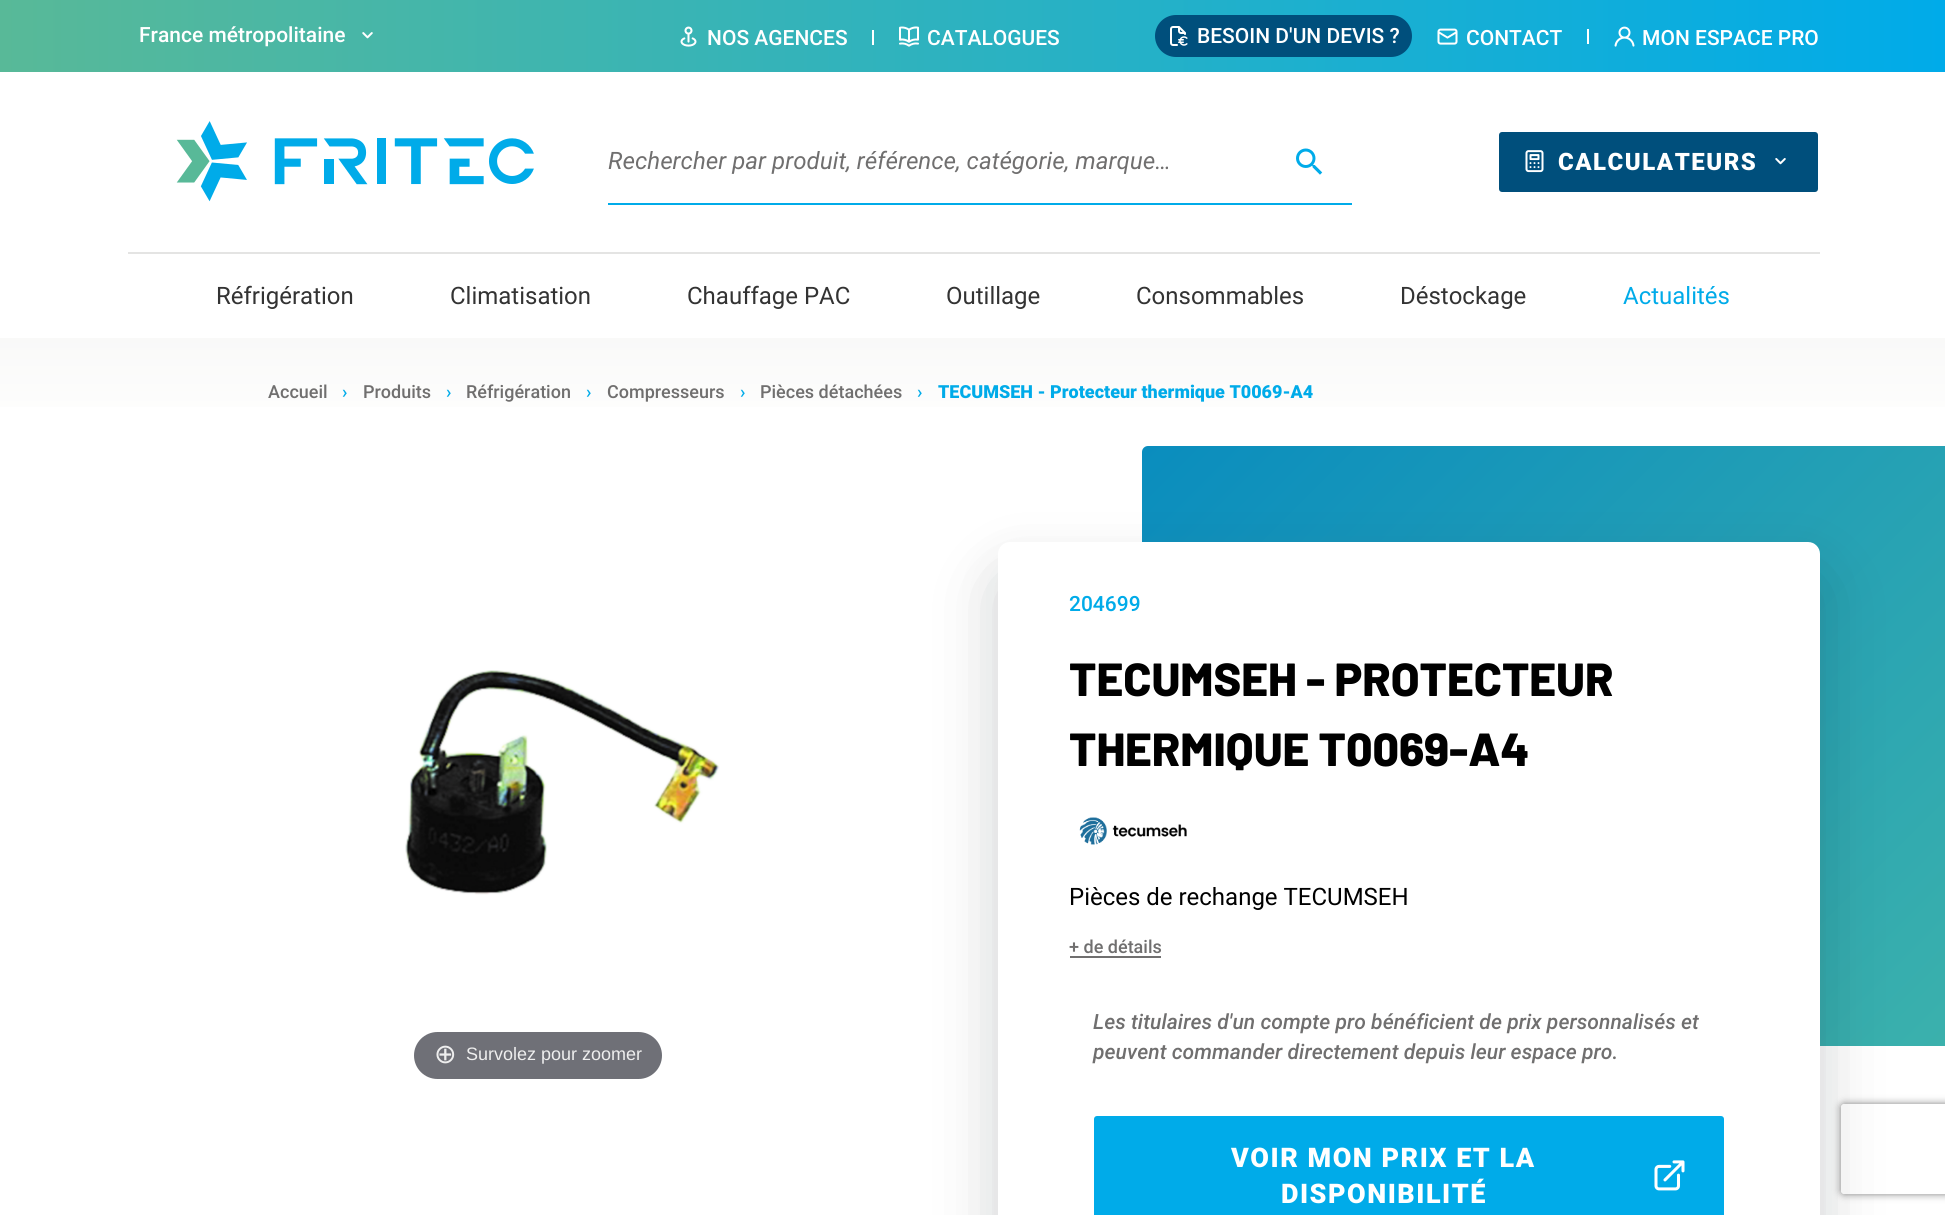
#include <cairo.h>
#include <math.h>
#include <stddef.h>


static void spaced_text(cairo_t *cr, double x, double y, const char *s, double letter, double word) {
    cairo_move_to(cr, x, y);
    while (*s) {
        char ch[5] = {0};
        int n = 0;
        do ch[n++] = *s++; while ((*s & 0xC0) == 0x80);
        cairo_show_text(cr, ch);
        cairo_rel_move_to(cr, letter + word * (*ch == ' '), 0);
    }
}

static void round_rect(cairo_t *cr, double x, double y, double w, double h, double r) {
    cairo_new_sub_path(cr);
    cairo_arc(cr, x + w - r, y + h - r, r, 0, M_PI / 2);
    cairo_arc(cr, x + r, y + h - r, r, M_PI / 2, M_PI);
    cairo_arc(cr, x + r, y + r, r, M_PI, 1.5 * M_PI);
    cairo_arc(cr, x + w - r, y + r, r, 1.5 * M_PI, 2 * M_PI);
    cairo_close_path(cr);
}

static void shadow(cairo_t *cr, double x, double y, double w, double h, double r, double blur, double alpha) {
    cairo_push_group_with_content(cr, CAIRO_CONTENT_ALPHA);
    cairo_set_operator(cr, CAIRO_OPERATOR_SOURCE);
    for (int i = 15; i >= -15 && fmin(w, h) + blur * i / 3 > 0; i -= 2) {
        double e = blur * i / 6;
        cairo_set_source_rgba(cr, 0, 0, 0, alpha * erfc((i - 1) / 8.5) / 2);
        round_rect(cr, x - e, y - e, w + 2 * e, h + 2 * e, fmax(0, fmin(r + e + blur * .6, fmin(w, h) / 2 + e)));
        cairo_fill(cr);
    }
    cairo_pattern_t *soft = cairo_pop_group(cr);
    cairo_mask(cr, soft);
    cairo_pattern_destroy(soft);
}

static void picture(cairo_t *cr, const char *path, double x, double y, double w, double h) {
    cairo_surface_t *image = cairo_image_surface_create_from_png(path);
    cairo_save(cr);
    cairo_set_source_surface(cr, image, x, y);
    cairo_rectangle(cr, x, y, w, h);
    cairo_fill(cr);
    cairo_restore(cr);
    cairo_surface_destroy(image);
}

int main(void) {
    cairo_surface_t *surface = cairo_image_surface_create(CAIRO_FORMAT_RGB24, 1945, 1215);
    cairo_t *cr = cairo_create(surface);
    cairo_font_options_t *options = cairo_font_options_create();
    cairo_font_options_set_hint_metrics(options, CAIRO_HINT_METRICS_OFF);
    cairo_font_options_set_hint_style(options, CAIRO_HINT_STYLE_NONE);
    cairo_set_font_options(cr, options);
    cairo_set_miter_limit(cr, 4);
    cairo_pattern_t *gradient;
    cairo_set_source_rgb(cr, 1, 1, 1);
    cairo_paint(cr);
    gradient = cairo_pattern_create_linear(0, 36, 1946, 36);
    cairo_pattern_add_color_stop_rgba(gradient, 0, 0.345, 0.725, 0.596, 1);
    cairo_pattern_add_color_stop_rgba(gradient, 1, 0, 0.671, 0.914, 1);
    cairo_set_source(cr, gradient);
    cairo_pattern_destroy(gradient);
    cairo_rectangle(cr, 0, 0, 1945, 72);
    cairo_fill(cr);
    cairo_select_font_face(cr, "Roboto Medium", CAIRO_FONT_SLANT_NORMAL, CAIRO_FONT_WEIGHT_NORMAL);
    cairo_set_font_size(cr, 21);
    cairo_set_source_rgb(cr, 1, 1, 1);
    cairo_move_to(cr, 139, 42);
    cairo_show_text(cr, "France métropolitaine");
    picture(cr, "img1.png", 362, 32, 11, 7);
    picture(cr, "img2.png", 680, 26, 17, 21);
    cairo_move_to(cr, 707, 45);
    cairo_show_text(cr, "NOS AGENCES");
    cairo_rectangle(cr, 872, 30, 2, 15);
    cairo_fill(cr);
    picture(cr, "img3.png", 899, 26, 20, 21);
    cairo_move_to(cr, 927, 45);
    cairo_show_text(cr, "CATALOGUES");
    cairo_set_source_rgb(cr, 0, 0.31, 0.486);
    round_rect(cr, 1155, 15, 257, 42, 21);
    cairo_fill(cr);
    picture(cr, "img4.png", 1170, 26, 18, 20);
    cairo_set_source_rgb(cr, 1, 1, 1);
    cairo_move_to(cr, 1197, 43);
    cairo_show_text(cr, "BESOIN D'UN DEVIS ?");
    picture(cr, "img5.png", 1437, 28, 21, 17);
    cairo_move_to(cr, 1466, 45);
    cairo_show_text(cr, "CONTACT");
    cairo_rectangle(cr, 1587, 29, 2, 15);
    cairo_fill(cr);
    picture(cr, "img6.png", 1614, 26, 21, 21);
    cairo_move_to(cr, 1642, 45);
    cairo_show_text(cr, "MON ESPACE PRO");
    picture(cr, "img7.png", 176, 121, 358, 81);
    cairo_set_source_rgb(cr, 0, 0.671, 0.914);
    cairo_rectangle(cr, 608, 203, 744, 2);
    cairo_fill(cr);
    cairo_select_font_face(cr, "Roboto", CAIRO_FONT_SLANT_ITALIC, CAIRO_FONT_WEIGHT_NORMAL);
    cairo_set_font_size(cr, 24);
    cairo_set_source_rgb(cr, 0.439, 0.435, 0.435);
    cairo_move_to(cr, 608, 169);
    cairo_show_text(cr, "Rechercher par produit, référence, catégorie, marque…");
    picture(cr, "img8.png", 1296, 148, 27, 27);
    cairo_set_source_rgb(cr, 0, 0.31, 0.486);
    round_rect(cr, 1499, 132, 319, 60, 3);
    cairo_fill(cr);
    picture(cr, "img9.png", 1525, 150, 19, 23);
    cairo_select_font_face(cr, "Roboto Black", CAIRO_FONT_SLANT_NORMAL, CAIRO_FONT_WEIGHT_NORMAL);
    cairo_set_source_rgb(cr, 1, 1, 1);
    spaced_text(cr, 1558, 170, "CALCULATEURS", 1.5, 0);
    picture(cr, "img10.png", 1775, 158, 11, 7);
    cairo_set_source_rgb(cr, 0.894, 0.894, 0.89);
    cairo_rectangle(cr, 128, 252, 1692, 2);
    cairo_fill(cr);
    cairo_select_font_face(cr, "Roboto", CAIRO_FONT_SLANT_NORMAL, CAIRO_FONT_WEIGHT_NORMAL);
    cairo_set_source_rgb(cr, 0.2, 0.2, 0.2);
    cairo_move_to(cr, 216, 304);
    cairo_show_text(cr, "Réfrigération");
    cairo_move_to(cr, 450, 304);
    cairo_show_text(cr, "Climatisation");
    cairo_move_to(cr, 687, 304);
    cairo_show_text(cr, "Chauffage PAC");
    cairo_move_to(cr, 946, 304);
    cairo_show_text(cr, "Outillage");
    cairo_move_to(cr, 1136, 304);
    cairo_show_text(cr, "Consommables");
    cairo_move_to(cr, 1400, 304);
    cairo_show_text(cr, "Déstockage");
    cairo_set_source_rgb(cr, 0, 0.671, 0.914);
    cairo_move_to(cr, 1623, 304);
    cairo_show_text(cr, "Actualités");
    gradient = cairo_pattern_create_linear(973, 337, 973, 446);
    cairo_pattern_add_color_stop_rgba(gradient, 0, 0.976, 0.976, 0.973, 1);
    cairo_pattern_add_color_stop_rgba(gradient, 1, 1, 1, 1, 1);
    cairo_set_source(cr, gradient);
    cairo_pattern_destroy(gradient);
    cairo_rectangle(cr, 0, 338, 1945, 69);
    cairo_fill(cr);
    cairo_select_font_face(cr, "Roboto Medium", CAIRO_FONT_SLANT_NORMAL, CAIRO_FONT_WEIGHT_NORMAL);
    cairo_set_font_size(cr, 18);
    cairo_set_source_rgb(cr, 0.439, 0.435, 0.435);
    cairo_move_to(cr, 268, 398);
    cairo_show_text(cr, "Accueil");
    cairo_set_source_rgb(cr, 0, 0.671, 0.914);
    cairo_move_to(cr, 342, 398);
    cairo_show_text(cr, "›");
    cairo_set_source_rgb(cr, 0.439, 0.435, 0.435);
    cairo_move_to(cr, 363, 398);
    cairo_show_text(cr, "Produits");
    cairo_set_source_rgb(cr, 0, 0.671, 0.914);
    cairo_move_to(cr, 446, 398);
    cairo_show_text(cr, "›");
    cairo_set_source_rgb(cr, 0.439, 0.435, 0.435);
    cairo_move_to(cr, 466, 398);
    cairo_show_text(cr, "Réfrigération");
    cairo_set_source_rgb(cr, 0, 0.671, 0.914);
    cairo_move_to(cr, 586, 398);
    cairo_show_text(cr, "›");
    cairo_set_source_rgb(cr, 0.439, 0.435, 0.435);
    cairo_move_to(cr, 607, 398);
    cairo_show_text(cr, "Compresseurs");
    cairo_set_source_rgb(cr, 0, 0.671, 0.914);
    cairo_move_to(cr, 740, 398);
    cairo_show_text(cr, "›");
    cairo_set_source_rgb(cr, 0.439, 0.435, 0.435);
    cairo_move_to(cr, 760, 398);
    cairo_show_text(cr, "Pièces détachées");
    cairo_set_source_rgb(cr, 0, 0.671, 0.914);
    cairo_move_to(cr, 917, 398);
    cairo_show_text(cr, "›");
    cairo_select_font_face(cr, "Roboto Black", CAIRO_FONT_SLANT_NORMAL, CAIRO_FONT_WEIGHT_NORMAL);
    cairo_move_to(cr, 938, 398);
    cairo_show_text(cr, "TECUMSEH - Protecteur thermique T0069-A4");
    picture(cr, "img11.png", 405, 670, 315, 225);
    cairo_set_source_rgb(cr, 0.435, 0.439, 0.467);
    round_rect(cr, 414, 1032, 248, 47, 23.5);
    cairo_fill(cr);
    cairo_select_font_face(cr, "DejaVu Sans", CAIRO_FONT_SLANT_NORMAL, CAIRO_FONT_WEIGHT_NORMAL);
    cairo_set_font_size(cr, 27);
    cairo_set_source_rgb(cr, 0.933, 0.933, 0.933);
    cairo_move_to(cr, 434, 1063);
    cairo_show_text(cr, "⊕");
    cairo_select_font_face(cr, "Liberation Sans", CAIRO_FONT_SLANT_NORMAL, CAIRO_FONT_WEIGHT_NORMAL);
    cairo_set_font_size(cr, 18);
    cairo_move_to(cr, 466, 1060);
    cairo_show_text(cr, "Survolez pour zoomer");
    gradient = cairo_pattern_create_linear(1235, 353, 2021, 1139);
    cairo_pattern_add_color_stop_rgba(gradient, 0, 0.039, 0.553, 0.745, 1);
    cairo_pattern_add_color_stop_rgba(gradient, 1, 0.255, 0.71, 0.667, 1);
    cairo_set_source(cr, gradient);
    cairo_pattern_destroy(gradient);
    round_rect(cr, 1142, 446, 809, 600, 6);
    cairo_fill(cr);
    cairo_set_source_rgb(cr, 0.098, 0.114, 0.141);
    shadow(cr, 998, 578, 822, 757, 12, 36, 0.16);
    shadow(cr, 998, 566, 822, 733, 12, 24, 0.06);
    cairo_set_source_rgb(cr, 1, 1, 1);
    round_rect(cr, 998, 542, 822, 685, 12);
    cairo_fill(cr);
    cairo_select_font_face(cr, "Roboto Medium", CAIRO_FONT_SLANT_NORMAL, CAIRO_FONT_WEIGHT_NORMAL);
    cairo_set_font_size(cr, 21);
    cairo_set_source_rgb(cr, 0, 0.671, 0.914);
    cairo_move_to(cr, 1069, 611);
    cairo_show_text(cr, "204699");
    cairo_select_font_face(cr, "Barlow ExtraBold", CAIRO_FONT_SLANT_NORMAL, CAIRO_FONT_WEIGHT_NORMAL);
    cairo_set_font_size(cr, 46.4);
    cairo_set_source_rgb(cr, 0, 0, 0);
    cairo_move_to(cr, 1069, 696);
    cairo_show_text(cr, "TECUMSEH - PROTECTEUR");
    cairo_move_to(cr, 1069, 766);
    cairo_show_text(cr, "THERMIQUE T0069-A4");
    picture(cr, "img12.png", 1079, 817, 108, 28);
    cairo_select_font_face(cr, "Roboto", CAIRO_FONT_SLANT_NORMAL, CAIRO_FONT_WEIGHT_NORMAL);
    cairo_set_font_size(cr, 24);
    cairo_move_to(cr, 1069, 905);
    cairo_show_text(cr, "Pièces de rechange TECUMSEH");
    cairo_select_font_face(cr, "Roboto Medium", CAIRO_FONT_SLANT_NORMAL, CAIRO_FONT_WEIGHT_NORMAL);
    cairo_set_font_size(cr, 18);
    cairo_set_source_rgb(cr, 0.439, 0.435, 0.435);
    cairo_move_to(cr, 1069, 953);
    cairo_show_text(cr, "+ de détails");
    cairo_rectangle(cr, 1070, 956, 91, 2);
    cairo_fill(cr);
    cairo_select_font_face(cr, "Roboto Medium", CAIRO_FONT_SLANT_ITALIC, CAIRO_FONT_WEIGHT_NORMAL);
    cairo_set_font_size(cr, 21);
    cairo_move_to(cr, 1093, 1029);
    cairo_show_text(cr, "Les titulaires d'un compte pro bénéficient de prix personnalisés et");
    cairo_move_to(cr, 1093, 1059);
    cairo_show_text(cr, "peuvent commander directement depuis leur espace pro.");
    cairo_set_source_rgb(cr, 0, 0.671, 0.914);
    round_rect(cr, 1094, 1116, 630, 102, 3);
    cairo_fill(cr);
    cairo_select_font_face(cr, "Roboto Black", CAIRO_FONT_SLANT_NORMAL, CAIRO_FONT_WEIGHT_NORMAL);
    cairo_set_font_size(cr, 27);
    cairo_set_source_rgb(cr, 1, 1, 1);
    spaced_text(cr, 1231, 1167, "VOIR MON PRIX ET LA", 1.5, 0);
    spaced_text(cr, 1281, 1203, "DISPONIBILITÉ", 1.5, 0);
    picture(cr, "img13.png", 1654, 1160, 31, 31);
    cairo_save(cr);
    cairo_set_fill_rule(cr, CAIRO_FILL_RULE_EVEN_ODD);
    cairo_new_path(cr);
    cairo_move_to(cr, 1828, 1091);
    cairo_line_to(cr, 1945, 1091);
    cairo_line_to(cr, 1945, 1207);
    cairo_line_to(cr, 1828, 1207);
    cairo_close_path(cr);
    cairo_move_to(cr, 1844, 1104);
    cairo_line_to(cr, 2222, 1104);
    cairo_curve_to(cr, 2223.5, 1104, 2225, 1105.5, 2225, 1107);
    cairo_line_to(cr, 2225, 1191);
    cairo_curve_to(cr, 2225, 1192.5, 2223.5, 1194, 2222, 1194);
    cairo_line_to(cr, 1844, 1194);
    cairo_curve_to(cr, 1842.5, 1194, 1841, 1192.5, 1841, 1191);
    cairo_line_to(cr, 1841, 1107);
    cairo_curve_to(cr, 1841, 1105.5, 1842.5, 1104, 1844, 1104);
    cairo_close_path(cr);
    cairo_clip(cr);
    cairo_set_source_rgb(cr, 0.502, 0.502, 0.502);
    shadow(cr, 1841, 1104, 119, 90, 3, 4, 1);
    cairo_restore(cr);
    cairo_surface_write_to_png(surface, "page.png");
    cairo_font_options_destroy(options);
    cairo_destroy(cr);
    cairo_surface_destroy(surface);
    return 0;
}
